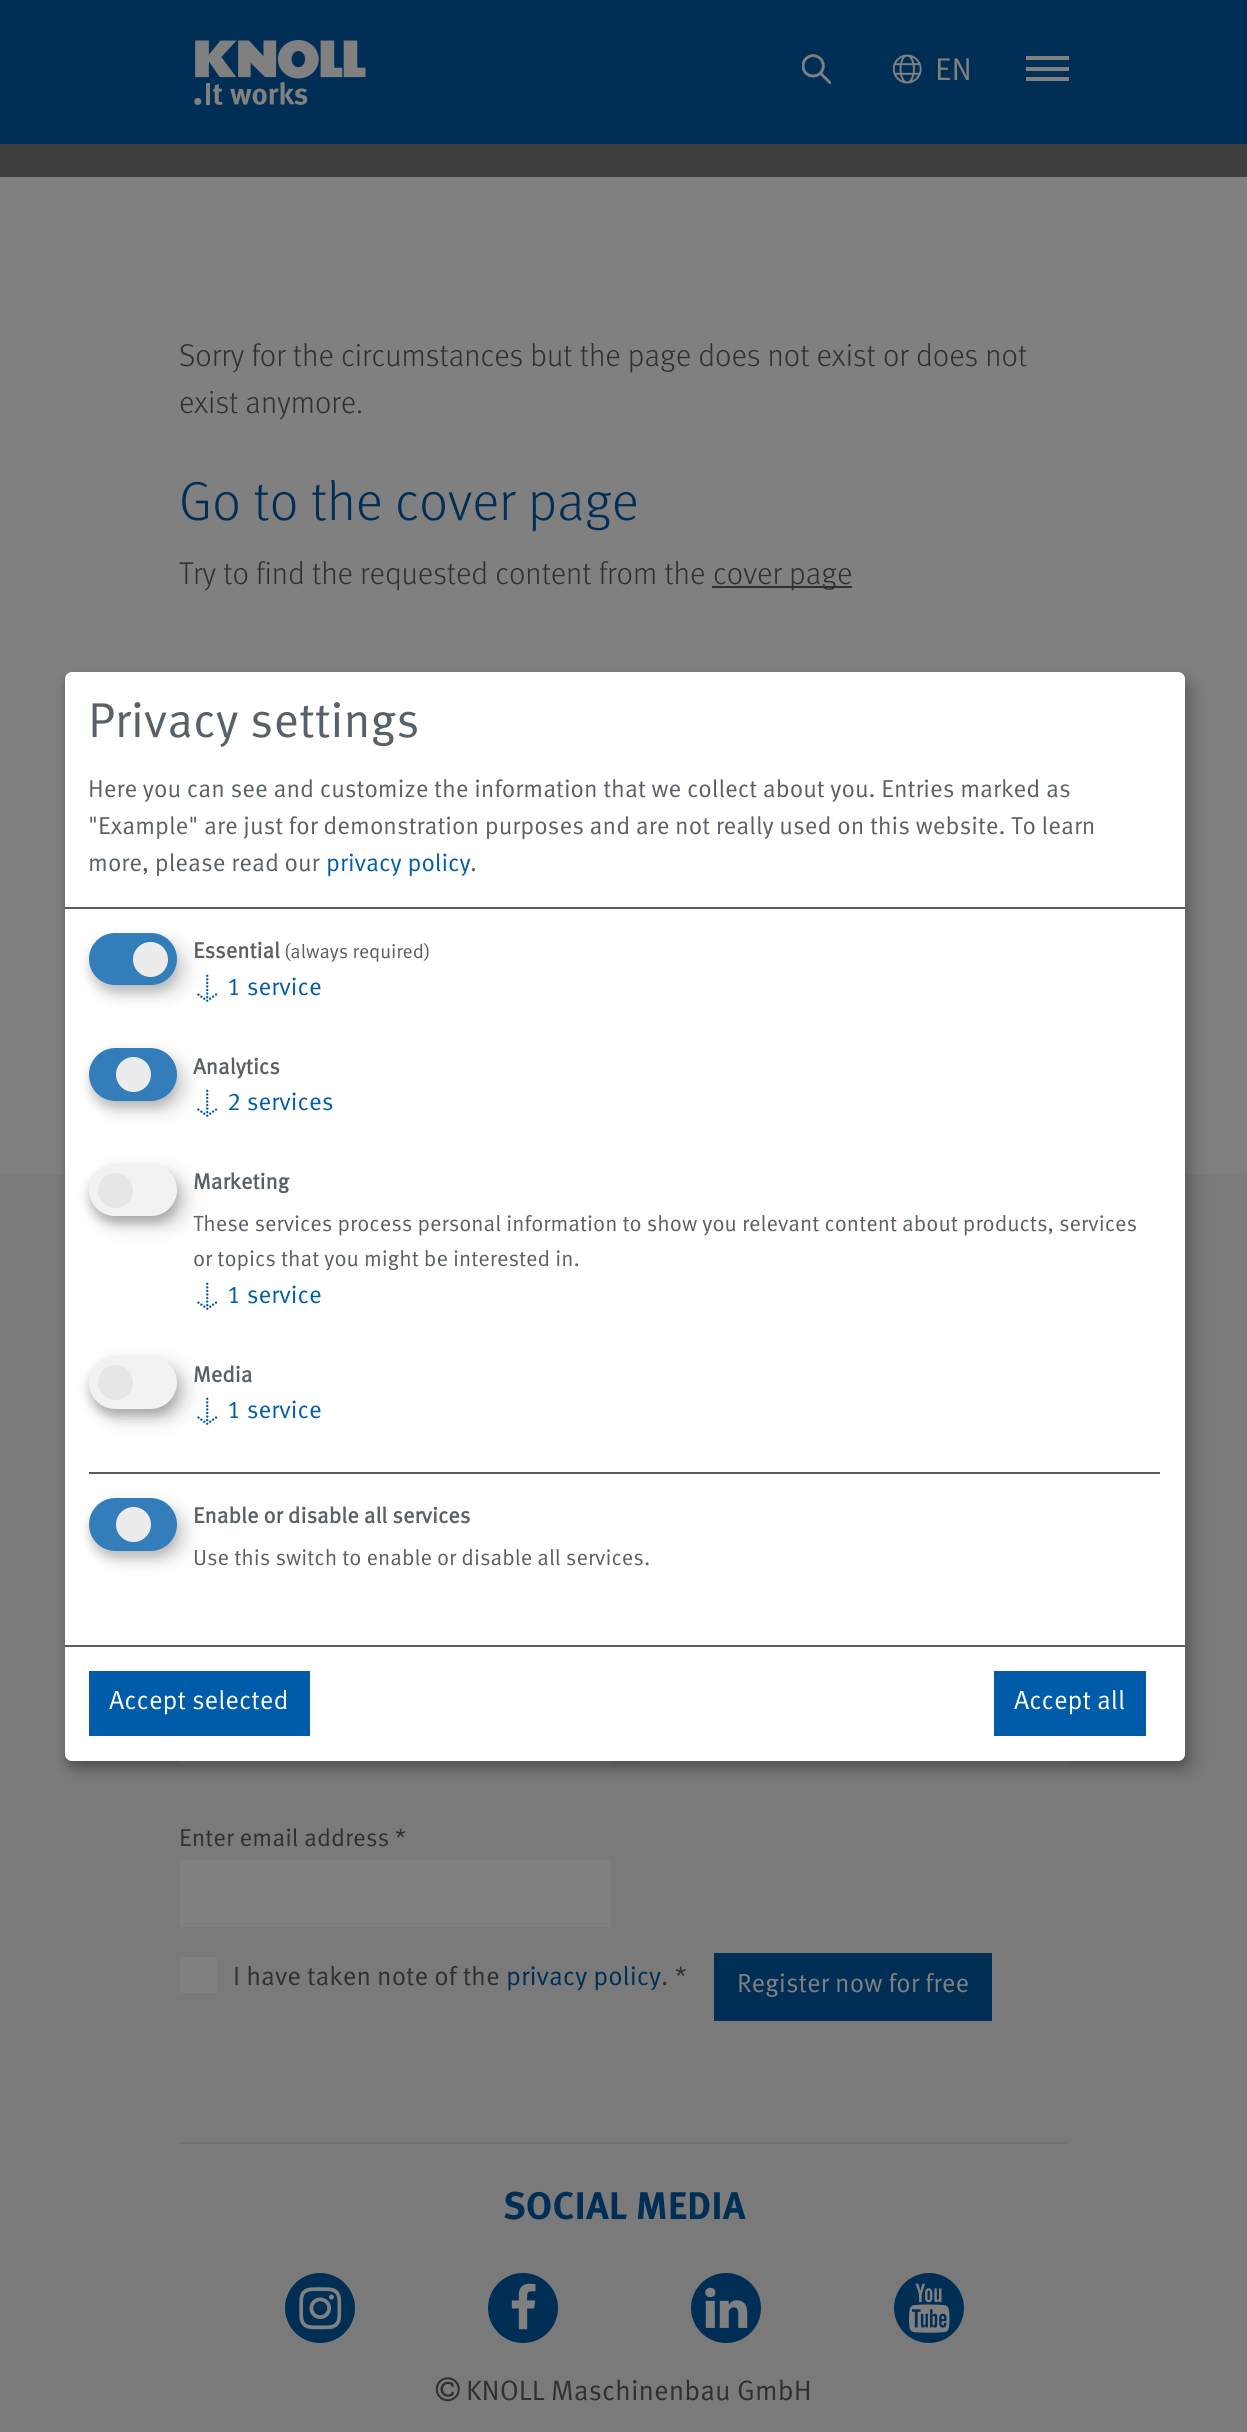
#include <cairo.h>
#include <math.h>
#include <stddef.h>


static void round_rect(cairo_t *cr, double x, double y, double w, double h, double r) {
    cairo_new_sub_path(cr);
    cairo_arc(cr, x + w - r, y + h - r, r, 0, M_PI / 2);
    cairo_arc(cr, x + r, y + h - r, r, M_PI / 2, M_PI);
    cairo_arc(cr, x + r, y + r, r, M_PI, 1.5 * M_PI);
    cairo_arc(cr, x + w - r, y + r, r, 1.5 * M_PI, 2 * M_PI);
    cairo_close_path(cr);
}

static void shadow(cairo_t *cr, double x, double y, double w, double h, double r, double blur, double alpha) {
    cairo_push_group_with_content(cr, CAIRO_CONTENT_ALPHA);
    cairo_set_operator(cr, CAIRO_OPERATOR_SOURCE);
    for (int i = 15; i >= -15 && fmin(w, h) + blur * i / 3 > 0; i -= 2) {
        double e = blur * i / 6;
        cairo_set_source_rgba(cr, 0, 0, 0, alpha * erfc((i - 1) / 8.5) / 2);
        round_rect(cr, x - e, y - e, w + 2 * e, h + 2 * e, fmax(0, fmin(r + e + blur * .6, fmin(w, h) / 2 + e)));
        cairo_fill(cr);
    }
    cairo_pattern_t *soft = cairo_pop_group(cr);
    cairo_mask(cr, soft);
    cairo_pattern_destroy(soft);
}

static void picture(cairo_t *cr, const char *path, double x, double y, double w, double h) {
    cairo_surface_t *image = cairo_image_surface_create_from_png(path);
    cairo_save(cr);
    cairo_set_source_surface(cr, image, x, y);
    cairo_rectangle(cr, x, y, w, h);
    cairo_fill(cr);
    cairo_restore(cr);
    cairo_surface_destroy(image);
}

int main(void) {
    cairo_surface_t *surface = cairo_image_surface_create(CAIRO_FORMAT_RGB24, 1247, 2432);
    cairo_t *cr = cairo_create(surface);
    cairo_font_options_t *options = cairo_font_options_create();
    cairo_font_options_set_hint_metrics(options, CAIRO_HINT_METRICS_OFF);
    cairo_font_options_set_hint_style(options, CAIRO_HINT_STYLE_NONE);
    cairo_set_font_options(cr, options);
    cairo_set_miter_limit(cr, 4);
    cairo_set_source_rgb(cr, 0.502, 0.502, 0.502);
    cairo_paint(cr);
    cairo_set_source_rgb(cr, 0, 0.18, 0.333);
    cairo_rectangle(cr, 0, 0, 1247, 144);
    cairo_fill(cr);
    picture(cr, "img1.png", 194, 40, 172, 65);
    picture(cr, "img2.png", 802, 54, 29, 30);
    picture(cr, "img3.png", 893, 54, 29, 30);
    cairo_select_font_face(cr, "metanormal", CAIRO_FONT_SLANT_NORMAL, CAIRO_FONT_WEIGHT_NORMAL);
    cairo_set_font_size(cr, 31.5);
    cairo_set_source_rgb(cr, 0.502, 0.502, 0.502);
    cairo_move_to(cr, 935, 80);
    cairo_show_text(cr, "EN");
    cairo_rectangle(cr, 1026, 56, 43, 4);
    cairo_fill(cr);
    cairo_rectangle(cr, 1026, 67, 43, 4);
    cairo_fill(cr);
    cairo_rectangle(cr, 1026, 77, 43, 4);
    cairo_fill(cr);
    cairo_set_source_rgb(cr, 0.251, 0.251, 0.251);
    cairo_rectangle(cr, 0, 144, 1247, 33);
    cairo_fill(cr);
    cairo_select_font_face(cr, "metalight", CAIRO_FONT_SLANT_NORMAL, CAIRO_FONT_WEIGHT_NORMAL);
    cairo_set_source_rgb(cr, 0.173, 0.192, 0.204);
    cairo_move_to(cr, 179, 366);
    cairo_show_text(cr, "Sorry for the circumstances but the page does not exist or does not");
    cairo_move_to(cr, 179, 413);
    cairo_show_text(cr, "exist anymore.");
    cairo_set_font_size(cr, 55.1);
    cairo_set_source_rgb(cr, 0, 0.18, 0.333);
    cairo_move_to(cr, 179, 520);
    cairo_show_text(cr, "Go to the cover page");
    cairo_set_font_size(cr, 31.5);
    cairo_set_source_rgb(cr, 0.173, 0.192, 0.204);
    cairo_move_to(cr, 179, 584);
    cairo_show_text(cr, "Try to find the requested content from the");
    cairo_rectangle(cr, 712, 586, 140, 2);
    cairo_fill(cr);
    cairo_move_to(cr, 713, 584);
    cairo_show_text(cr, "cover page");
    cairo_set_source_rgb(cr, 0.478, 0.478, 0.478);
    cairo_rectangle(cr, 0, 1174, 1247, 1258);
    cairo_fill(cr);
    cairo_set_source_rgb(cr, 0.502, 0.502, 0.502);
    cairo_rectangle(cr, 180, 1761, 431, 3);
    cairo_fill(cr);
    cairo_rectangle(cr, 639, 1761, 430, 3);
    cairo_fill(cr);
    cairo_set_source_rgb(cr, 0, 0, 0);
    shadow(cr, 74, 681, 1120, 1088, 7, 9, 0.19);
    shadow(cr, 65, 679, 1120, 1089, 7, 5, 0.2);
    cairo_set_source_rgb(cr, 1, 1, 1);
    round_rect(cr, 65, 672, 1120, 1089, 7);
    cairo_fill(cr);
    cairo_set_source_rgb(cr, 0.361, 0.361, 0.361);
    cairo_rectangle(cr, 65, 907, 1120, 2);
    cairo_fill(cr);
    cairo_select_font_face(cr, "metanormal", CAIRO_FONT_SLANT_NORMAL, CAIRO_FONT_WEIGHT_NORMAL);
    cairo_set_font_size(cr, 49);
    cairo_set_source_rgb(cr, 0.341, 0.38, 0.404);
    cairo_move_to(cr, 88, 737);
    cairo_show_text(cr, "Privacy settings");
    cairo_set_font_size(cr, 24.5);
    cairo_move_to(cr, 88, 797);
    cairo_show_text(cr, "Here you can see and customize the information that we collect about you. Entries marked as");
    cairo_move_to(cr, 88, 834);
    cairo_show_text(cr, "\"Example\" are just for demonstration purposes and are not really used on this website. To learn");
    cairo_move_to(cr, 88, 871);
    cairo_show_text(cr, "more, please read our");
    cairo_set_source_rgb(cr, 0, 0.361, 0.663);
    cairo_move_to(cr, 326, 871);
    cairo_show_text(cr, "privacy policy");
    cairo_set_source_rgb(cr, 0.341, 0.38, 0.404);
    cairo_move_to(cr, 470, 871);
    cairo_show_text(cr, ".");
    cairo_set_source_rgb(cr, 0, 0, 0);
    shadow(cr, 98, 942, 88, 52, 26, 9, 0.15);
    cairo_set_source_rgb(cr, 0.2, 0.2, 0.2);
    shadow(cr, 89, 940, 88, 52, 26, 5, 0.2);
    cairo_set_source_rgb(cr, 0.2, 0.49, 0.729);
    round_rect(cr, 89, 933, 88, 52, 26);
    cairo_fill(cr);
    cairo_set_source_rgb(cr, 0.922, 0.922, 0.922);
    cairo_arc(cr, 150.5, 959.5, 17.5, 0, 2 * M_PI);
    cairo_fill(cr);
    cairo_select_font_face(cr, "metanormal", CAIRO_FONT_SLANT_NORMAL, CAIRO_FONT_WEIGHT_BOLD);
    cairo_set_font_size(cr, 22.05);
    cairo_set_source_rgb(cr, 0.341, 0.38, 0.404);
    cairo_move_to(cr, 193, 958);
    cairo_show_text(cr, "Essential");
    cairo_select_font_face(cr, "metanormal", CAIRO_FONT_SLANT_NORMAL, CAIRO_FONT_WEIGHT_NORMAL);
    cairo_set_font_size(cr, 19.5);
    cairo_set_source_rgb(cr, 0.361, 0.361, 0.361);
    cairo_move_to(cr, 284, 958);
    cairo_show_text(cr, "(always required)");
    cairo_set_font_size(cr, 24.5);
    cairo_set_source_rgb(cr, 0, 0.361, 0.663);
    cairo_move_to(cr, 193, 995);
    cairo_show_text(cr, "↓ 1 service");
    cairo_set_source_rgb(cr, 0, 0, 0);
    shadow(cr, 98, 1057, 88, 53, 26.5, 9, 0.15);
    cairo_set_source_rgb(cr, 0.2, 0.2, 0.2);
    shadow(cr, 89, 1055, 88, 53, 26.5, 5, 0.2);
    cairo_set_source_rgb(cr, 0.2, 0.49, 0.729);
    round_rect(cr, 89, 1048, 88, 53, 26.5);
    cairo_fill(cr);
    cairo_set_source_rgb(cr, 0.922, 0.922, 0.922);
    cairo_arc(cr, 133.5, 1074.5, 17.5, 0, 2 * M_PI);
    cairo_fill(cr);
    cairo_select_font_face(cr, "metanormal", CAIRO_FONT_SLANT_NORMAL, CAIRO_FONT_WEIGHT_BOLD);
    cairo_set_font_size(cr, 22.05);
    cairo_set_source_rgb(cr, 0.341, 0.38, 0.404);
    cairo_move_to(cr, 193, 1074);
    cairo_show_text(cr, "Analytics");
    cairo_select_font_face(cr, "metanormal", CAIRO_FONT_SLANT_NORMAL, CAIRO_FONT_WEIGHT_NORMAL);
    cairo_set_font_size(cr, 24.5);
    cairo_set_source_rgb(cr, 0, 0.361, 0.663);
    cairo_move_to(cr, 193, 1110);
    cairo_show_text(cr, "↓ 2 services");
    cairo_set_source_rgb(cr, 0, 0, 0);
    shadow(cr, 98, 1173, 88, 52, 26, 9, 0.19);
    shadow(cr, 89, 1171, 88, 52, 26, 5, 0.2);
    cairo_set_source_rgb(cr, 0.949, 0.949, 0.949);
    round_rect(cr, 89, 1164, 88, 52, 26);
    cairo_fill(cr);
    cairo_set_source_rgb(cr, 0.902, 0.902, 0.902);
    cairo_arc(cr, 115.5, 1190.5, 17.5, 0, 2 * M_PI);
    cairo_fill(cr);
    cairo_select_font_face(cr, "metanormal", CAIRO_FONT_SLANT_NORMAL, CAIRO_FONT_WEIGHT_BOLD);
    cairo_set_font_size(cr, 22.05);
    cairo_set_source_rgb(cr, 0.341, 0.38, 0.404);
    cairo_move_to(cr, 193, 1189);
    cairo_show_text(cr, "Marketing");
    cairo_select_font_face(cr, "metanormal", CAIRO_FONT_SLANT_NORMAL, CAIRO_FONT_WEIGHT_NORMAL);
    cairo_move_to(cr, 193, 1231);
    cairo_show_text(cr, "These services process personal information to show you relevant content about products, services");
    cairo_move_to(cr, 193, 1266);
    cairo_show_text(cr, "or topics that you might be interested in.");
    cairo_set_font_size(cr, 24.5);
    cairo_set_source_rgb(cr, 0, 0.361, 0.663);
    cairo_move_to(cr, 193, 1303);
    cairo_show_text(cr, "↓ 1 service");
    cairo_set_source_rgb(cr, 0, 0, 0);
    shadow(cr, 98, 1365, 88, 53, 26.5, 9, 0.19);
    shadow(cr, 89, 1363, 88, 53, 26.5, 5, 0.2);
    cairo_set_source_rgb(cr, 0.949, 0.949, 0.949);
    round_rect(cr, 89, 1356, 88, 53, 26.5);
    cairo_fill(cr);
    cairo_set_source_rgb(cr, 0.902, 0.902, 0.902);
    cairo_arc(cr, 115.5, 1382.5, 17.5, 0, 2 * M_PI);
    cairo_fill(cr);
    cairo_select_font_face(cr, "metanormal", CAIRO_FONT_SLANT_NORMAL, CAIRO_FONT_WEIGHT_BOLD);
    cairo_set_font_size(cr, 22.05);
    cairo_set_source_rgb(cr, 0.341, 0.38, 0.404);
    cairo_move_to(cr, 193, 1382);
    cairo_show_text(cr, "Media");
    cairo_select_font_face(cr, "metanormal", CAIRO_FONT_SLANT_NORMAL, CAIRO_FONT_WEIGHT_NORMAL);
    cairo_set_font_size(cr, 24.5);
    cairo_set_source_rgb(cr, 0, 0.361, 0.663);
    cairo_move_to(cr, 193, 1418);
    cairo_show_text(cr, "↓ 1 service");
    cairo_set_source_rgb(cr, 0.361, 0.361, 0.361);
    cairo_rectangle(cr, 89, 1472, 1071, 2);
    cairo_fill(cr);
    cairo_set_source_rgb(cr, 0, 0, 0);
    shadow(cr, 98, 1507, 88, 52, 26, 9, 0.15);
    cairo_set_source_rgb(cr, 0.2, 0.2, 0.2);
    shadow(cr, 89, 1505, 88, 53, 26.5, 5, 0.2);
    cairo_set_source_rgb(cr, 0.2, 0.49, 0.729);
    round_rect(cr, 89, 1498, 88, 53, 26.5);
    cairo_fill(cr);
    cairo_set_source_rgb(cr, 0.922, 0.922, 0.922);
    cairo_arc(cr, 133.5, 1524.5, 17.5, 0, 2 * M_PI);
    cairo_fill(cr);
    cairo_select_font_face(cr, "metanormal", CAIRO_FONT_SLANT_NORMAL, CAIRO_FONT_WEIGHT_BOLD);
    cairo_set_font_size(cr, 22.05);
    cairo_set_source_rgb(cr, 0.341, 0.38, 0.404);
    cairo_move_to(cr, 193, 1523);
    cairo_show_text(cr, "Enable or disable all services");
    cairo_select_font_face(cr, "metanormal", CAIRO_FONT_SLANT_NORMAL, CAIRO_FONT_WEIGHT_NORMAL);
    cairo_move_to(cr, 193, 1565);
    cairo_show_text(cr, "Use this switch to enable or disable all services.");
    cairo_set_source_rgb(cr, 0.361, 0.361, 0.361);
    cairo_rectangle(cr, 65, 1645, 1120, 2);
    cairo_fill(cr);
    cairo_set_source_rgb(cr, 0, 0.361, 0.663);
    cairo_rectangle(cr, 89, 1671, 221, 65);
    cairo_fill(cr);
    cairo_set_font_size(cr, 26.25);
    cairo_set_source_rgb(cr, 1, 1, 1);
    cairo_move_to(cr, 109, 1709);
    cairo_show_text(cr, "Accept selected");
    cairo_set_source_rgb(cr, 0, 0.361, 0.663);
    cairo_rectangle(cr, 994, 1671, 152, 65);
    cairo_fill(cr);
    cairo_set_source_rgb(cr, 1, 1, 1);
    cairo_move_to(cr, 1014, 1709);
    cairo_show_text(cr, "Accept all");
    cairo_set_font_size(cr, 24.5);
    cairo_set_source_rgb(cr, 0.173, 0.192, 0.204);
    cairo_move_to(cr, 179, 1846);
    cairo_show_text(cr, "Enter email address *");
    cairo_set_source_rgb(cr, 0.502, 0.502, 0.502);
    cairo_rectangle(cr, 180, 1860, 431, 67);
    cairo_fill(cr);
    cairo_rectangle(cr, 180, 1957, 37, 36);
    cairo_fill(cr);
    cairo_set_font_size(cr, 26.25);
    cairo_set_source_rgb(cr, 0.173, 0.192, 0.204);
    cairo_move_to(cr, 233, 1985);
    cairo_show_text(cr, "I have taken note of the");
    cairo_set_source_rgb(cr, 0, 0.18, 0.333);
    cairo_move_to(cr, 506, 1985);
    cairo_show_text(cr, "privacy policy");
    cairo_set_source_rgb(cr, 0.173, 0.192, 0.204);
    cairo_move_to(cr, 661, 1985);
    cairo_show_text(cr, ". *");
    cairo_set_source_rgb(cr, 0, 0.18, 0.333);
    cairo_rectangle(cr, 714, 1953, 278, 68);
    cairo_fill(cr);
    cairo_set_source_rgb(cr, 0.502, 0.502, 0.502);
    cairo_move_to(cr, 737, 1992);
    cairo_show_text(cr, "Register now for free");
    cairo_set_source_rgb(cr, 0.435, 0.439, 0.443);
    cairo_rectangle(cr, 180, 2142, 889, 2);
    cairo_fill(cr);
    cairo_select_font_face(cr, "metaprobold", CAIRO_FONT_SLANT_NORMAL, CAIRO_FONT_WEIGHT_NORMAL);
    cairo_set_font_size(cr, 38.5);
    cairo_set_source_rgb(cr, 0, 0.18, 0.333);
    cairo_move_to(cr, 503, 2219);
    cairo_show_text(cr, "SOCIAL MEDIA");
    cairo_new_path(cr);
    cairo_arc(cr, 320, 2308, 35, 0, 2 * M_PI);
    cairo_fill(cr);
    picture(cr, "img4.png", 299, 2287, 43, 43);
    cairo_arc(cr, 523, 2308, 35, 0, 2 * M_PI);
    cairo_fill(cr);
    picture(cr, "img5.png", 511, 2283, 25, 47);
    cairo_arc(cr, 726, 2308, 35, 0, 2 * M_PI);
    cairo_fill(cr);
    picture(cr, "img6.png", 705, 2287, 43, 41);
    cairo_arc(cr, 929, 2308, 35, 0, 2 * M_PI);
    cairo_fill(cr);
    picture(cr, "img7.png", 909, 2283, 41, 50);
    picture(cr, "img8.png", 435, 2377, 25, 25);
    cairo_select_font_face(cr, "metanormal", CAIRO_FONT_SLANT_NORMAL, CAIRO_FONT_WEIGHT_NORMAL);
    cairo_set_font_size(cr, 28);
    cairo_set_source_rgb(cr, 0.173, 0.192, 0.204);
    cairo_move_to(cr, 466, 2400);
    cairo_show_text(cr, "KNOLL Maschinenbau GmbH");
    cairo_surface_write_to_png(surface, "page.png");
    cairo_font_options_destroy(options);
    cairo_destroy(cr);
    cairo_surface_destroy(surface);
    return 0;
}
